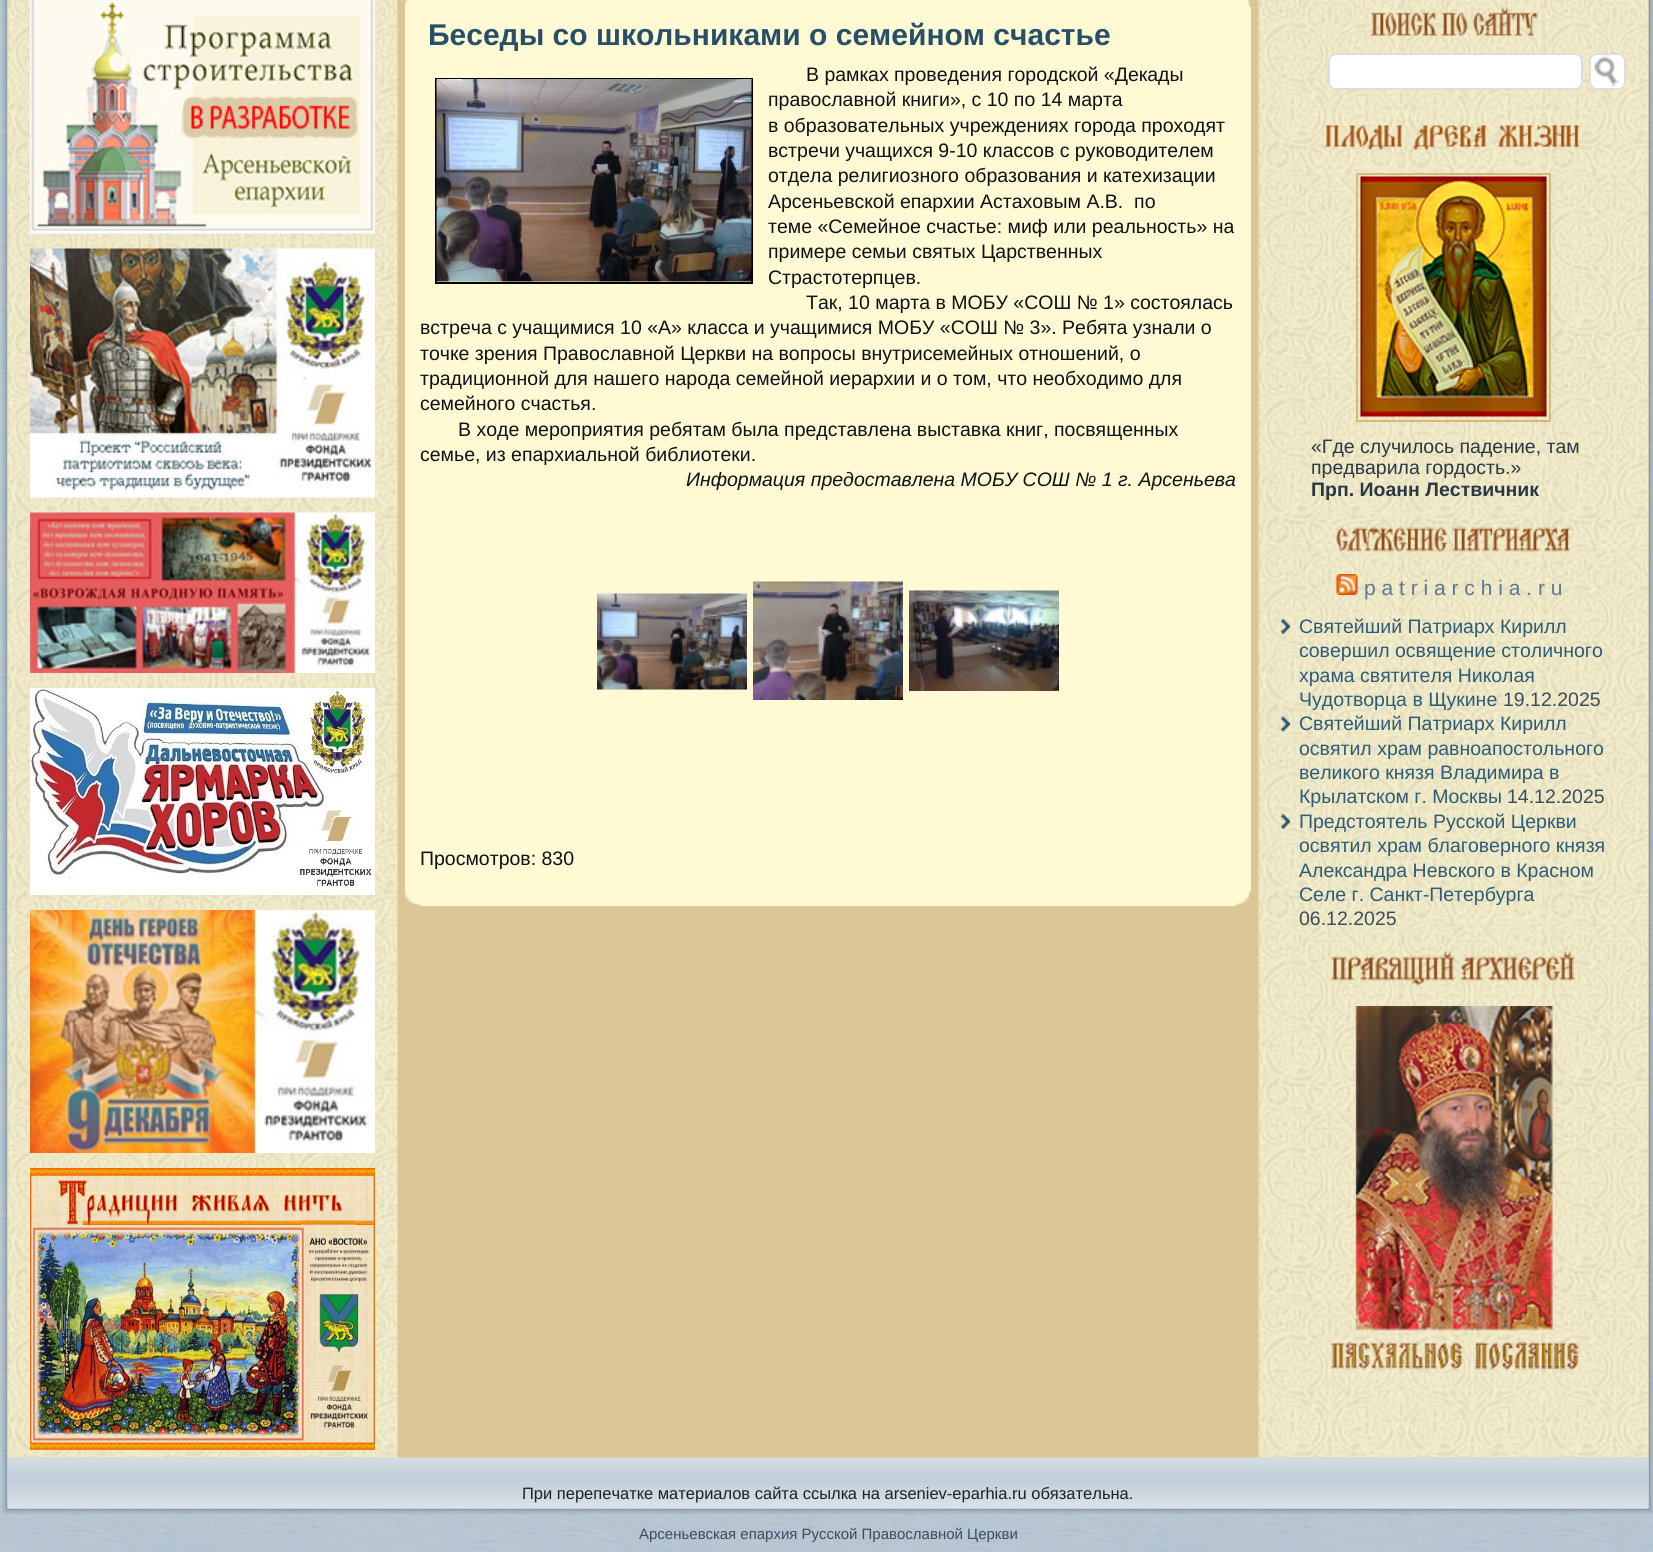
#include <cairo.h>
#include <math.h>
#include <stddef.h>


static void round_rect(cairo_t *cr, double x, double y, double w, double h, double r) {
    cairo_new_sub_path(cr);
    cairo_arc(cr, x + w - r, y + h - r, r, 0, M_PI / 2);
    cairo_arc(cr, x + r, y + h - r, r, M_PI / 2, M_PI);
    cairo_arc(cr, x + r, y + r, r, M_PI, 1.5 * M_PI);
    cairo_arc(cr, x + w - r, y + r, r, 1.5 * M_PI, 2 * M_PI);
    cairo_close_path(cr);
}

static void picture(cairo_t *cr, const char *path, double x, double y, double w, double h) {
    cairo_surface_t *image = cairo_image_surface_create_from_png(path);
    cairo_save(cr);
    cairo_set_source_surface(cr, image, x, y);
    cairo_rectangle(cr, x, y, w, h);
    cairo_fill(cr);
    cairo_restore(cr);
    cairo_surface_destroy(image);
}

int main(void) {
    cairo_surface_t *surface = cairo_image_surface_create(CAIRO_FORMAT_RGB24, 1653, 1552);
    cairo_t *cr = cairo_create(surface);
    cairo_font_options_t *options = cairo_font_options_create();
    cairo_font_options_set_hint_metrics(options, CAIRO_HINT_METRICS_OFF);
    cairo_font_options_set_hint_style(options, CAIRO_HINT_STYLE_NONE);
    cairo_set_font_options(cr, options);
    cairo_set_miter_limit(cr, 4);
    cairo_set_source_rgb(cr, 1, 1, 1);
    cairo_paint(cr);
    picture(cr, "img1.png", 0, 0, 1653, 1552);
    picture(cr, "img2.png", 397, 4, 862, 1);
    picture(cr, "img3.png", 2, 0, 6, 4);
    cairo_set_source_rgb(cr, 0.976, 0.98, 0.984);
    cairo_rectangle(cr, 397, 0, 862, 4);
    cairo_fill(cr);
    picture(cr, "img4.png", 1648, 0, 5, 4);
    picture(cr, "img5.png", 2, 4, 19, 1491);
    cairo_rectangle(cr, 21, 5, 1614, 1453);
    cairo_fill(cr);
    picture(cr, "img6.png", 1635, 4, 18, 1491);
    picture(cr, "img7.png", 2, 1495, 19, 19);
    cairo_set_source_rgba(cr, 0.714, 0.51, 0.071, 0.43);
    cairo_rectangle(cr, 8, 0, 1641, 1458);
    cairo_fill(cr);
    picture(cr, "img8.png", 7, 0, 391, 1458);
    picture(cr, "img9.png", 30, 0, 345, 234);
    picture(cr, "img10.png", 30, 248, 345, 250);
    picture(cr, "img11.png", 30, 512, 345, 161);
    picture(cr, "img12.png", 30, 688, 345, 207);
    picture(cr, "img13.png", 30, 910, 345, 243);
    picture(cr, "img14.png", 30, 1168, 345, 282);
    picture(cr, "img15.png", 405, 0, 15, 7);
    cairo_set_source_rgb(cr, 1, 0.976, 0.831);
    cairo_rectangle(cr, 420, 0, 816, 7);
    cairo_fill(cr);
    picture(cr, "img16.png", 1236, 0, 14, 7);
    cairo_rectangle(cr, 405, 7, 15, 884);
    cairo_fill(cr);
    cairo_rectangle(cr, 420, 7, 816, 899);
    cairo_fill(cr);
    cairo_rectangle(cr, 1236, 7, 15, 884);
    cairo_fill(cr);
    cairo_select_font_face(cr, "Liberation Sans", CAIRO_FONT_SLANT_NORMAL, CAIRO_FONT_WEIGHT_BOLD);
    cairo_set_font_size(cr, 30);
    cairo_set_source_rgb(cr, 0.153, 0.314, 0.408);
    cairo_move_to(cr, 428, 45);
    cairo_show_text(cr, "Беседы со школьниками о семейном счастье");
    cairo_select_font_face(cr, "Liberation Sans", CAIRO_FONT_SLANT_NORMAL, CAIRO_FONT_WEIGHT_NORMAL);
    cairo_set_font_size(cr, 19.5);
    cairo_set_source_rgb(cr, 0.051, 0.071, 0.086);
    cairo_move_to(cr, 806, 81);
    cairo_show_text(cr, "В рамках проведения городской «Декады");
    cairo_rectangle(cr, 436, 79, 316, 204);
    cairo_set_source_rgb(cr, 0, 0, 0);
    cairo_stroke(cr);
    picture(cr, "img17.png", 436, 79, 316, 203);
    cairo_set_source_rgb(cr, 0.051, 0.071, 0.086);
    cairo_move_to(cr, 768, 106);
    cairo_show_text(cr, "православной книги», c 10 по 14 марта");
    cairo_move_to(cr, 768, 132);
    cairo_show_text(cr, "в образовательных учреждениях города проходят");
    cairo_move_to(cr, 768, 157);
    cairo_show_text(cr, "встречи учащихся 9-10 классов с руководителем");
    cairo_move_to(cr, 768, 182);
    cairo_show_text(cr, "отдела религиозного образования и катехизации");
    cairo_move_to(cr, 768, 208);
    cairo_show_text(cr, "Арсеньевской епархии Астаховым А.В.  по");
    cairo_move_to(cr, 768, 233);
    cairo_show_text(cr, "теме «Семейное счастье: миф или реальность» на");
    cairo_move_to(cr, 768, 258);
    cairo_show_text(cr, "примере семьи святых Царственных");
    cairo_move_to(cr, 768, 284);
    cairo_show_text(cr, "Страстотерпцев.");
    cairo_move_to(cr, 806, 309);
    cairo_show_text(cr, "Так, 10 марта в МОБУ «СОШ № 1» состоялась");
    cairo_move_to(cr, 420, 334);
    cairo_show_text(cr, "встреча с учащимися 10 «А» класса и учащимися МОБУ «СОШ № 3». Ребята узнали о");
    cairo_move_to(cr, 420, 360);
    cairo_show_text(cr, "точке зрения Православной Церкви на вопросы внутрисемейных отношений, о");
    cairo_move_to(cr, 420, 385);
    cairo_show_text(cr, "традиционной для нашего народа семейной иерархии и о том, что необходимо для");
    cairo_move_to(cr, 420, 410);
    cairo_show_text(cr, "семейного счастья.");
    cairo_move_to(cr, 458, 436);
    cairo_show_text(cr, "В ходе мероприятия ребятам была представлена выставка книг, посвященных");
    cairo_move_to(cr, 420, 461);
    cairo_show_text(cr, "семье, из епархиальной библиотеки.");
    cairo_select_font_face(cr, "Liberation Sans", CAIRO_FONT_SLANT_ITALIC, CAIRO_FONT_WEIGHT_NORMAL);
    cairo_move_to(cr, 686, 486);
    cairo_show_text(cr, "Информация предоставлена МОБУ СОШ № 1 г. Арсеньева");
    cairo_select_font_face(cr, "Liberation Sans", CAIRO_FONT_SLANT_NORMAL, CAIRO_FONT_WEIGHT_NORMAL);
    cairo_set_source_rgb(cr, 1, 1, 0.6);
    cairo_move_to(cr, 458, 512);
    cairo_show_text(cr, ".");
    picture(cr, "img18.png", 597, 593, 150, 97);
    picture(cr, "img19.png", 753, 581, 150, 119);
    picture(cr, "img20.png", 909, 590, 150, 101);
    cairo_move_to(cr, 420, 822);
    cairo_show_text(cr, ".");
    cairo_set_source_rgb(cr, 0.051, 0.071, 0.086);
    cairo_move_to(cr, 420, 865);
    cairo_show_text(cr, "Просмотров: 830");
    picture(cr, "img21.png", 405, 891, 15, 15);
    picture(cr, "img22.png", 1236, 891, 14, 15);
    picture(cr, "img23.png", 1258, 0, 391, 1458);
    picture(cr, "img24.png", 1370, 6, 168, 30);
    cairo_set_source_rgb(cr, 1, 1, 1);
    round_rect(cr, 1329, 54, 253, 35, 7);
    cairo_fill_preserve(cr);
    cairo_set_source_rgb(cr, 0.867, 0.867, 0.867);
    cairo_stroke(cr);
    cairo_set_source_rgb(cr, 1, 1, 1);
    round_rect(cr, 1589, 53, 37, 37, 8);
    cairo_fill(cr);
    picture(cr, "img25.png", 1594, 52, 25, 35);
    round_rect(cr, 1590, 54, 35, 35, 7);
    cairo_set_source_rgb(cr, 0.867, 0.867, 0.867);
    cairo_stroke(cr);
    picture(cr, "img26.png", 1325, 125, 255, 25);
    cairo_rectangle(cr, 1357, 174, 193, 247);
    cairo_set_source_rgba(cr, 0.714, 0.51, 0.071, 0.43);
    cairo_stroke(cr);
    picture(cr, "img27.png", 1360, 176, 187, 241);
    cairo_set_source_rgb(cr, 0.165, 0.22, 0.275);
    cairo_move_to(cr, 1311, 453);
    cairo_show_text(cr, "«Где случилось падение, там");
    cairo_move_to(cr, 1311, 474);
    cairo_show_text(cr, "предварила гордость.»");
    cairo_select_font_face(cr, "Liberation Sans", CAIRO_FONT_SLANT_NORMAL, CAIRO_FONT_WEIGHT_BOLD);
    cairo_move_to(cr, 1311, 496);
    cairo_show_text(cr, "Прп. Иоанн Лествичник");
    picture(cr, "img28.png", 1336, 527, 235, 25);
    picture(cr, "img29.png", 1336, 574, 22, 21);
    cairo_select_font_face(cr, "Liberation Sans", CAIRO_FONT_SLANT_NORMAL, CAIRO_FONT_WEIGHT_NORMAL);
    cairo_set_font_size(cr, 21);
    cairo_set_source_rgb(cr, 0.353, 0.471, 0.588);
    cairo_move_to(cr, 1364, 595);
    cairo_show_text(cr, "p a t r i a r c h i a . r u");
    picture(cr, "img30.png", 1281, 618, 9, 16);
    cairo_set_font_size(cr, 19.5);
    cairo_set_source_rgb(cr, 0.173, 0.361, 0.467);
    cairo_move_to(cr, 1299, 633);
    cairo_show_text(cr, "Святейший Патриарх Кирилл");
    cairo_move_to(cr, 1299, 657);
    cairo_show_text(cr, "совершил освящение столичного");
    cairo_move_to(cr, 1299, 682);
    cairo_show_text(cr, "храма святителя Николая");
    cairo_move_to(cr, 1299, 706);
    cairo_show_text(cr, "Чудотворца в Щукине");
    cairo_set_source_rgb(cr, 0.224, 0.302, 0.376);
    cairo_move_to(cr, 1503, 706);
    cairo_show_text(cr, "19.12.2025");
    picture(cr, "img31.png", 1281, 716, 9, 16);
    cairo_set_source_rgb(cr, 0.173, 0.361, 0.467);
    cairo_move_to(cr, 1299, 730);
    cairo_show_text(cr, "Святейший Патриарх Кирилл");
    cairo_move_to(cr, 1299, 755);
    cairo_show_text(cr, "освятил храм равноапостольного");
    cairo_move_to(cr, 1299, 779);
    cairo_show_text(cr, "великого князя Владимира в");
    cairo_move_to(cr, 1299, 803);
    cairo_show_text(cr, "Крылатском г. Москвы");
    cairo_set_source_rgb(cr, 0.224, 0.302, 0.376);
    cairo_move_to(cr, 1507, 803);
    cairo_show_text(cr, "14.12.2025");
    picture(cr, "img32.png", 1281, 813, 9, 16);
    cairo_set_source_rgb(cr, 0.173, 0.361, 0.467);
    cairo_move_to(cr, 1299, 828);
    cairo_show_text(cr, "Предстоятель Русской Церкви");
    cairo_move_to(cr, 1299, 852);
    cairo_show_text(cr, "освятил храм благоверного князя");
    cairo_move_to(cr, 1299, 877);
    cairo_show_text(cr, "Александра Невского в Красном");
    cairo_move_to(cr, 1299, 901);
    cairo_show_text(cr, "Селе г. Санкт-Петербурга");
    cairo_set_source_rgb(cr, 0.224, 0.302, 0.376);
    cairo_move_to(cr, 1299, 925);
    cairo_show_text(cr, "06.12.2025");
    picture(cr, "img33.png", 1330, 950, 246, 36);
    picture(cr, "img34.png", 1330, 1006, 249, 364);
    picture(cr, "img36.png", 1635, 1495, 18, 19);
    picture(cr, "img37.png", 21, 1508, 1614, 6);
    picture(cr, "img35.png", 7, 1457, 1642, 52);
    cairo_set_font_size(cr, 16.5);
    cairo_set_source_rgb(cr, 0.098, 0.129, 0.161);
    cairo_move_to(cr, 522, 1499);
    cairo_show_text(cr, "При перепечатке материалов сайта ссылка на arseniev-eparhia.ru обязательна.");
    cairo_set_font_size(cr, 15);
    cairo_set_source_rgb(cr, 0.224, 0.302, 0.376);
    cairo_move_to(cr, 639, 1539);
    cairo_show_text(cr, "Арсеньевская епархия Русской Православной Церкви");
    cairo_surface_write_to_png(surface, "page.png");
    cairo_font_options_destroy(options);
    cairo_destroy(cr);
    cairo_surface_destroy(surface);
    return 0;
}
